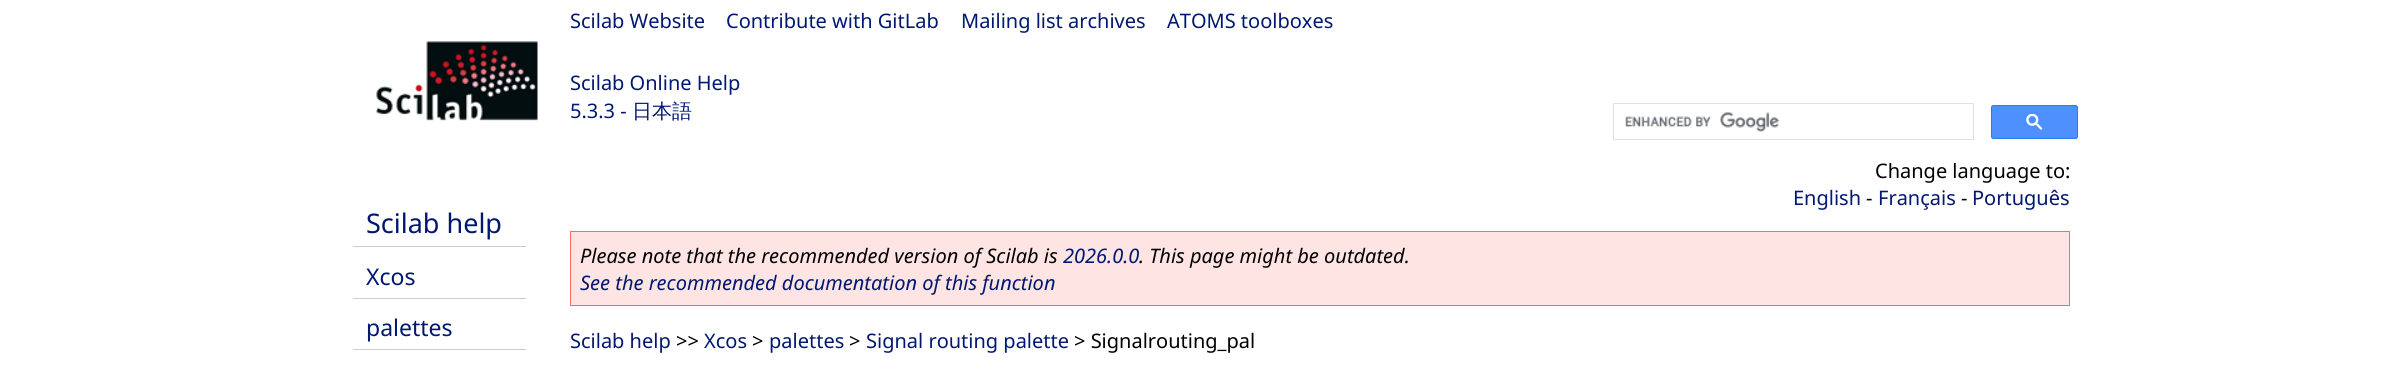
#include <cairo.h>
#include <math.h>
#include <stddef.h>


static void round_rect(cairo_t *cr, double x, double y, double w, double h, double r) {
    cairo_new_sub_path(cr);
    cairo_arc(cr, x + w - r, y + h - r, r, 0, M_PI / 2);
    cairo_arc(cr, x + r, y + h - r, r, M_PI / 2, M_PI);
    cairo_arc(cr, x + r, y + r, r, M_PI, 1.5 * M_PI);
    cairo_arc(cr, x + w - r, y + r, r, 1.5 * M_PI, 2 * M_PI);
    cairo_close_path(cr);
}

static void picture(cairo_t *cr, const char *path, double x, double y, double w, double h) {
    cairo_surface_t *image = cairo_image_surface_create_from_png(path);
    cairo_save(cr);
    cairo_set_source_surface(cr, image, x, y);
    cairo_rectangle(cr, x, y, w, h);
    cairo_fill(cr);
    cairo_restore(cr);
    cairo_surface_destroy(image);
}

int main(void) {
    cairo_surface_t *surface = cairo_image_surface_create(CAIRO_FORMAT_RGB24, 2390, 375);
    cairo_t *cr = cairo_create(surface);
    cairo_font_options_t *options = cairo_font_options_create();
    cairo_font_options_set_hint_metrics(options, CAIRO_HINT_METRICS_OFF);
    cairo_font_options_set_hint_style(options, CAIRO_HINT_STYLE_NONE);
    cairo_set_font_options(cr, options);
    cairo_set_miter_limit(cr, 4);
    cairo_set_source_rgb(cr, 1, 1, 1);
    cairo_paint(cr);
    picture(cr, "img1.png", 376, 41, 162, 80);
    cairo_select_font_face(cr, "Noto Sans", CAIRO_FONT_SLANT_NORMAL, CAIRO_FONT_WEIGHT_NORMAL);
    cairo_set_font_size(cr, 20);
    cairo_set_source_rgb(cr, 0, 0.094, 0.443);
    cairo_move_to(cr, 570, 28);
    cairo_show_text(cr, "Scilab Website");
    cairo_move_to(cr, 726, 28);
    cairo_show_text(cr, "Contribute with GitLab");
    cairo_move_to(cr, 961, 28);
    cairo_show_text(cr, "Mailing list archives");
    cairo_move_to(cr, 1167, 28);
    cairo_show_text(cr, "ATOMS toolboxes");
    cairo_move_to(cr, 570, 90);
    cairo_show_text(cr, "Scilab Online Help");
    cairo_move_to(cr, 570, 118);
    cairo_show_text(cr, "5.3.3 -");
    cairo_select_font_face(cr, "WenQuanYi Zen Hei Medium", CAIRO_FONT_SLANT_NORMAL, CAIRO_FONT_WEIGHT_NORMAL);
    cairo_move_to(cr, 632, 118);
    cairo_show_text(cr, "日本語");
    cairo_select_font_face(cr, "Noto Sans", CAIRO_FONT_SLANT_NORMAL, CAIRO_FONT_WEIGHT_NORMAL);
    cairo_set_source_rgb(cr, 0, 0, 0);
    cairo_move_to(cr, 1875, 178);
    cairo_show_text(cr, "Change language to:");
    cairo_set_source_rgb(cr, 1, 1, 1);
    cairo_rectangle(cr, 1888, 162, 68, 1);
    cairo_fill(cr);
    cairo_rectangle(cr, 1613.5, 103.5, 360, 36);
    cairo_set_source_rgb(cr, 0.875, 0.882, 0.898);
    cairo_set_line_width(cr, 1);
    cairo_stroke(cr);
    picture(cr, "img2.png", 1625, 112, 154, 20);
    cairo_set_source_rgb(cr, 0.302, 0.565, 0.996);
    round_rect(cr, 1991.5, 105.5, 86, 33, 2);
    cairo_fill_preserve(cr);
    cairo_set_source_rgb(cr, 0.188, 0.475, 0.929);
    cairo_stroke(cr);
    picture(cr, "img3.png", 2026, 114, 17, 16);
    cairo_set_source_rgb(cr, 0.8, 0.8, 0.8);
    cairo_rectangle(cr, 353, 246, 173, 1);
    cairo_fill(cr);
    cairo_set_font_size(cr, 27);
    cairo_set_source_rgb(cr, 0, 0.094, 0.443);
    cairo_move_to(cr, 366, 233);
    cairo_show_text(cr, "Scilab help");
    cairo_set_source_rgb(cr, 0.8, 0.8, 0.8);
    cairo_rectangle(cr, 353, 298, 173, 1);
    cairo_fill(cr);
    cairo_set_font_size(cr, 23);
    cairo_set_source_rgb(cr, 0, 0.094, 0.443);
    cairo_move_to(cr, 366, 285);
    cairo_show_text(cr, "Xcos");
    cairo_set_source_rgb(cr, 0.8, 0.8, 0.8);
    cairo_rectangle(cr, 353, 349, 173, 1);
    cairo_fill(cr);
    cairo_set_source_rgb(cr, 0, 0.094, 0.443);
    cairo_move_to(cr, 366, 336);
    cairo_show_text(cr, "palettes");
    cairo_set_font_size(cr, 20);
    cairo_move_to(cr, 1793, 205);
    cairo_show_text(cr, "English");
    cairo_set_source_rgb(cr, 0, 0, 0);
    cairo_move_to(cr, 1866, 205);
    cairo_show_text(cr, "-");
    cairo_set_source_rgb(cr, 0, 0.094, 0.443);
    cairo_move_to(cr, 1878, 205);
    cairo_show_text(cr, "Français");
    cairo_set_source_rgb(cr, 0, 0, 0);
    cairo_move_to(cr, 1961, 205);
    cairo_show_text(cr, "-");
    cairo_set_source_rgb(cr, 0, 0.094, 0.443);
    cairo_move_to(cr, 1972, 205);
    cairo_show_text(cr, "Português");
    cairo_set_source_rgb(cr, 1, 0.894, 0.894);
    cairo_rectangle(cr, 570.5, 231.5, 1499, 74);
    cairo_fill_preserve(cr);
    cairo_set_source_rgb(cr, 1, 0.4, 0.4);
    cairo_stroke(cr);
    cairo_select_font_face(cr, "Noto Sans", CAIRO_FONT_SLANT_ITALIC, CAIRO_FONT_WEIGHT_NORMAL);
    cairo_set_source_rgb(cr, 0, 0, 0);
    cairo_move_to(cr, 580, 263);
    cairo_show_text(cr, "Please note that the recommended version of Scilab is");
    cairo_set_source_rgb(cr, 0, 0.094, 0.443);
    cairo_move_to(cr, 1063, 263);
    cairo_show_text(cr, "2026.0.0");
    cairo_set_source_rgb(cr, 0, 0, 0);
    cairo_move_to(cr, 1139, 263);
    cairo_show_text(cr, ". This page might be outdated.");
    cairo_set_source_rgb(cr, 0, 0.094, 0.443);
    cairo_move_to(cr, 580, 290);
    cairo_show_text(cr, "See the recommended documentation of this function");
    cairo_select_font_face(cr, "Noto Sans", CAIRO_FONT_SLANT_NORMAL, CAIRO_FONT_WEIGHT_NORMAL);
    cairo_move_to(cr, 570, 348);
    cairo_show_text(cr, "Scilab help");
    cairo_set_source_rgb(cr, 0, 0, 0);
    cairo_move_to(cr, 676, 348);
    cairo_show_text(cr, ">>");
    cairo_set_source_rgb(cr, 0, 0.094, 0.443);
    cairo_move_to(cr, 704, 348);
    cairo_show_text(cr, "Xcos");
    cairo_set_source_rgb(cr, 0, 0, 0);
    cairo_move_to(cr, 752, 348);
    cairo_show_text(cr, ">");
    cairo_set_source_rgb(cr, 0, 0.094, 0.443);
    cairo_move_to(cr, 769, 348);
    cairo_show_text(cr, "palettes");
    cairo_set_source_rgb(cr, 0, 0, 0);
    cairo_move_to(cr, 849, 348);
    cairo_show_text(cr, ">");
    cairo_set_source_rgb(cr, 0, 0.094, 0.443);
    cairo_move_to(cr, 866, 348);
    cairo_show_text(cr, "Signal routing palette");
    cairo_set_source_rgb(cr, 0, 0, 0);
    cairo_move_to(cr, 1074, 348);
    cairo_show_text(cr, "> Signalrouting_pal");
    cairo_surface_write_to_png(surface, "page.png");
    cairo_font_options_destroy(options);
    cairo_destroy(cr);
    cairo_surface_destroy(surface);
    return 0;
}
